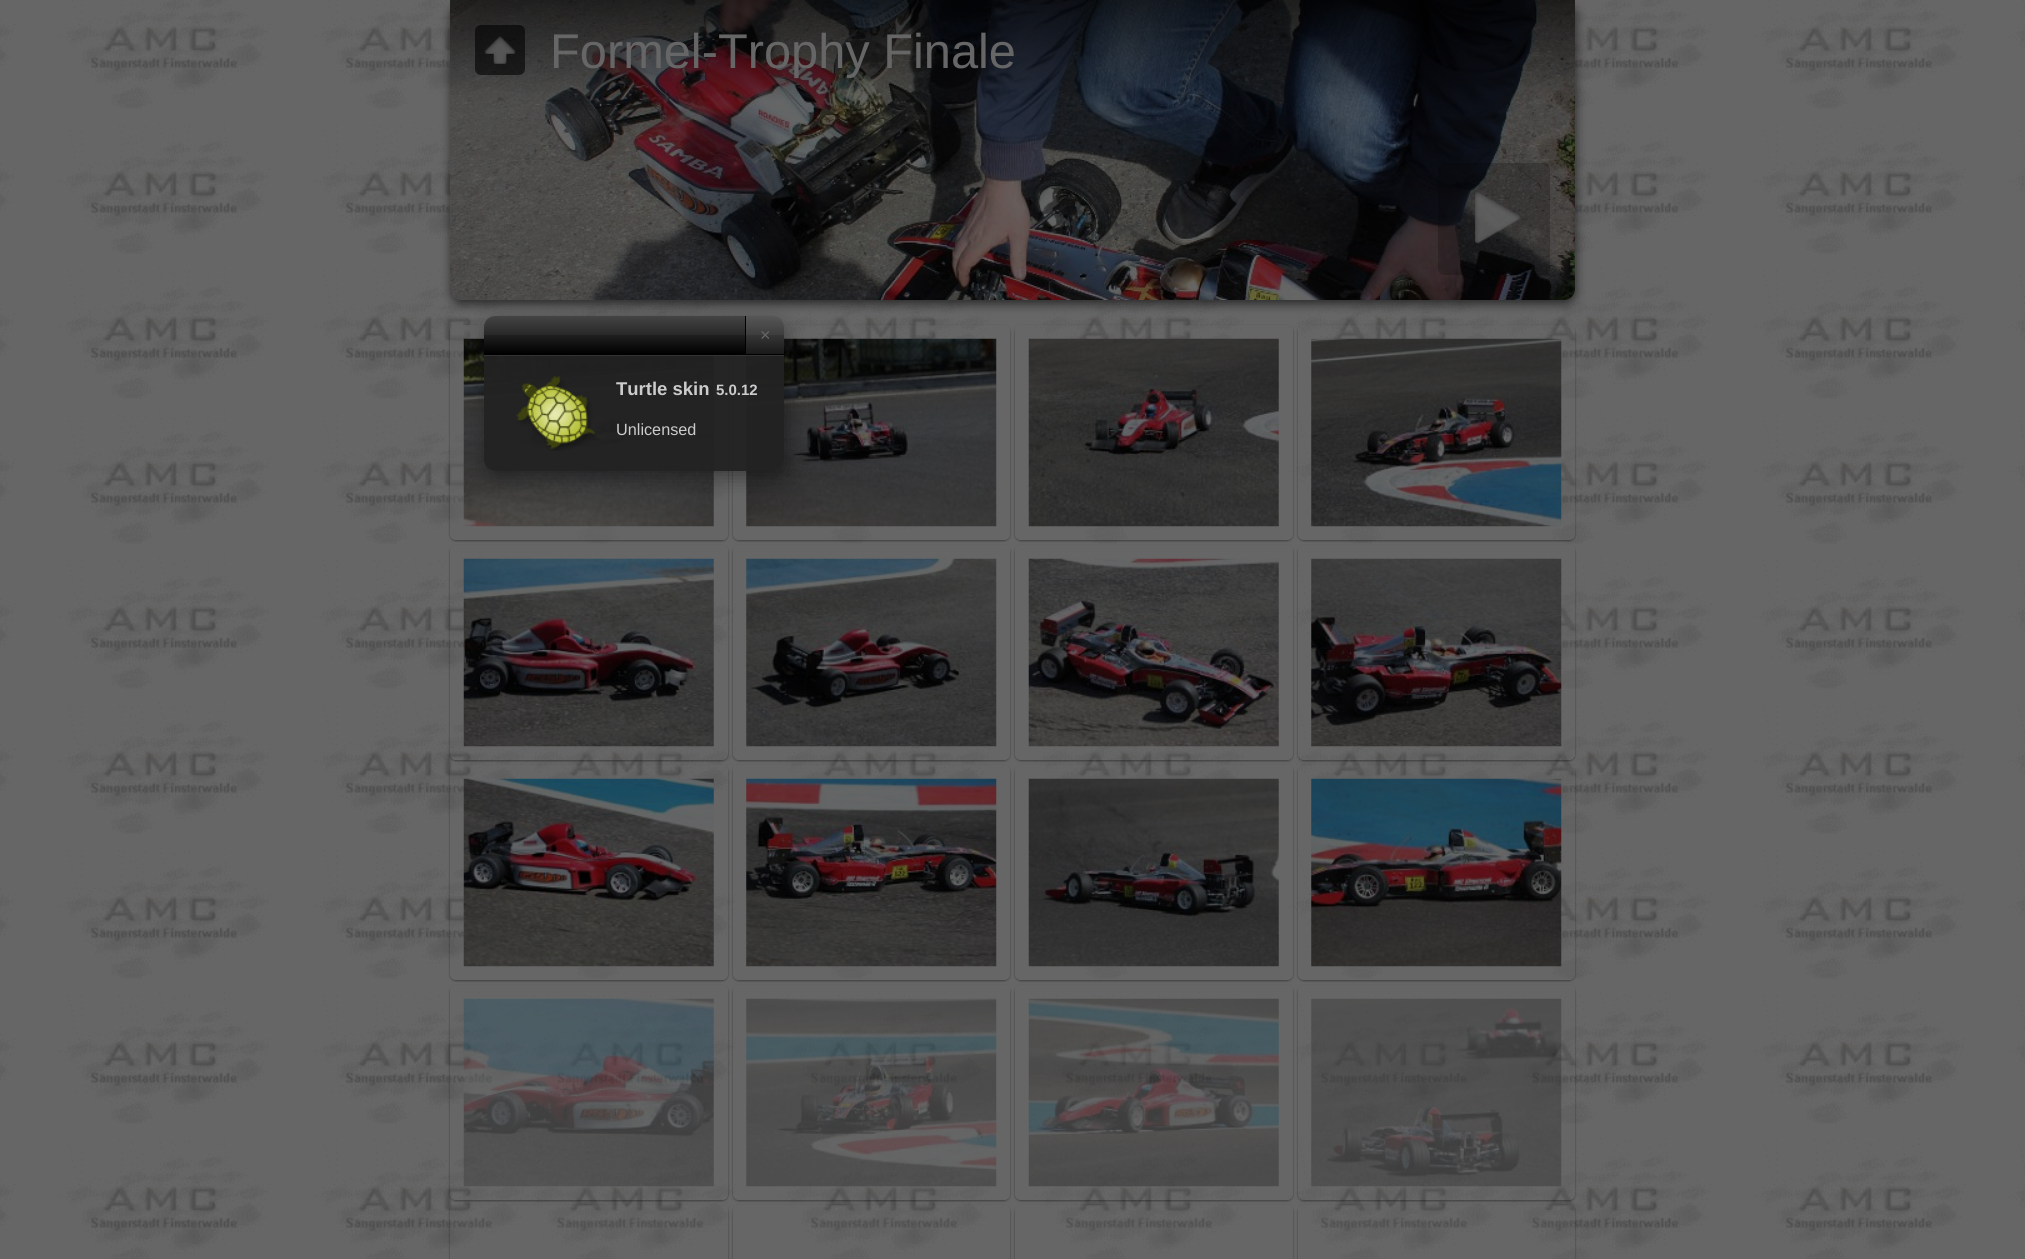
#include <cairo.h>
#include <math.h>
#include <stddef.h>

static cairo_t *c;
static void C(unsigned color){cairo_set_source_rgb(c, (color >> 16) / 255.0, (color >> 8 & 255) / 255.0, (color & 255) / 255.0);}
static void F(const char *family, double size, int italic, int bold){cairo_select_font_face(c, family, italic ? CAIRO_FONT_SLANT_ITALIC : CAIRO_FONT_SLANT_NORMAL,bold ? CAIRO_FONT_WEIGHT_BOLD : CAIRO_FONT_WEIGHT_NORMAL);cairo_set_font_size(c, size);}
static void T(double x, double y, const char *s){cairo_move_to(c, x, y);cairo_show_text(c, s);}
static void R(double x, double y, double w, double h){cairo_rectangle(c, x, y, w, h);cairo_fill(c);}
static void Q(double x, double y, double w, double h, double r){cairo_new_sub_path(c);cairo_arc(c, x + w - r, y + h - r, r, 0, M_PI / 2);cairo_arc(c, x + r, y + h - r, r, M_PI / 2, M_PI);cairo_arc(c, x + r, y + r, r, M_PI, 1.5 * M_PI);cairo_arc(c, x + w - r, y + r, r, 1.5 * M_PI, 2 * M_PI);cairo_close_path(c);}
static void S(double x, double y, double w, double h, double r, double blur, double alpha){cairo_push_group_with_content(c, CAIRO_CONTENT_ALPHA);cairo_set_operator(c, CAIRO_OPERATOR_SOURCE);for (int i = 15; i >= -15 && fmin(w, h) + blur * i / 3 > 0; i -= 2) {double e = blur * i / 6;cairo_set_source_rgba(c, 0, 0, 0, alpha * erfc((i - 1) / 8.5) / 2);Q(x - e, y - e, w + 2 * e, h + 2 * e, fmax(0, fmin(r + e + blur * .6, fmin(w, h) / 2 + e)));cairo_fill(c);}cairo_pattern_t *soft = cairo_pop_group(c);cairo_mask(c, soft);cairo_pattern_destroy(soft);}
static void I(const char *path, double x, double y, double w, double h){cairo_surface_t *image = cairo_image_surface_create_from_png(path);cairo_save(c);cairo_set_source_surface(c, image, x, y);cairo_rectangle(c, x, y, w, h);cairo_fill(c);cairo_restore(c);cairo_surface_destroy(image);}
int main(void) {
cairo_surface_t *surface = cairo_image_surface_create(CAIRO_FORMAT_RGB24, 2025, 1259);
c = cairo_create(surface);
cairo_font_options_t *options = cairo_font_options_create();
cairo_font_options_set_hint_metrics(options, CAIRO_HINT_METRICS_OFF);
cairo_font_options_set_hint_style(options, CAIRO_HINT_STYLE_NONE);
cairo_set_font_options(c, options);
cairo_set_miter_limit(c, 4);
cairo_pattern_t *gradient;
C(0xffffff);
cairo_paint(c);
I("1.png",0,0,2025,1259);
C(0x000000);
S(451,4,1125,300,11,5,.6);
I("2.png",450,0,1125,300);
cairo_set_source_rgba(c,0,0,0,0.6);
Q(475,25,50,50,6);
cairo_fill(c);
I("3.png",484,36,32,28);
F("Liberation Sans",48.75,0,0);
C(0x666666);
T(550,68,"Formel-Trophy Finale");
cairo_set_source_rgba(c,0,0,0,0.2);
Q(1438,163,112,112,6);
cairo_fill(c);
I("4.png",1474,191,47,53);
cairo_save(c);
cairo_set_fill_rule(c,CAIRO_FILL_RULE_EVEN_ODD);
cairo_new_path(c);
cairo_move_to(c,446,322);
cairo_line_to(c,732,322);
cairo_line_to(c,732,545);
cairo_line_to(c,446,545);
cairo_close_path(c);
cairo_move_to(c,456,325);
cairo_line_to(c,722,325);
cairo_curve_to(c,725.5,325,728,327.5,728,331);
cairo_line_to(c,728,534);
cairo_curve_to(c,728,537.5,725.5,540,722,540);
cairo_line_to(c,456,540);
cairo_curve_to(c,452.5,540,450,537.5,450,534);
cairo_line_to(c,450,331);
cairo_curve_to(c,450,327.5,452.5,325,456,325);
cairo_close_path(c);
cairo_clip(c);
C(0x000000);
S(450,326,278,215,6,1,.4);
cairo_restore(c);
cairo_set_source_rgba(c,0.4,0.4,0.4,0.1);
Q(450,325,278,215,6);
cairo_fill(c);
cairo_set_source_rgba(c,0.4,0.4,0.4,0.4);
Q(450,325,278,215,6);
cairo_fill(c);
I("5.png",463,338,251,189);
cairo_save(c);
cairo_set_fill_rule(c,CAIRO_FILL_RULE_EVEN_ODD);
cairo_new_path(c);
cairo_move_to(c,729,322);
cairo_line_to(c,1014,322);
cairo_line_to(c,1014,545);
cairo_line_to(c,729,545);
cairo_close_path(c);
cairo_move_to(c,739,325);
cairo_line_to(c,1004,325);
cairo_curve_to(c,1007.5,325,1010,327.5,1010,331);
cairo_line_to(c,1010,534);
cairo_curve_to(c,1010,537.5,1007.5,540,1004,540);
cairo_line_to(c,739,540);
cairo_curve_to(c,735.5,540,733,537.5,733,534);
cairo_line_to(c,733,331);
cairo_curve_to(c,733,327.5,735.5,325,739,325);
cairo_close_path(c);
cairo_clip(c);
C(0x000000);
S(733,326,277,215,6,1,.4);
cairo_restore(c);
cairo_set_source_rgba(c,0.4,0.4,0.4,0.1);
Q(733,325,277,215,6);
cairo_fill(c);
I("6.png",746,338,251,189);
cairo_save(c);
cairo_set_fill_rule(c,CAIRO_FILL_RULE_EVEN_ODD);
cairo_new_path(c);
cairo_move_to(c,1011,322);
cairo_line_to(c,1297,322);
cairo_line_to(c,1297,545);
cairo_line_to(c,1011,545);
cairo_close_path(c);
cairo_move_to(c,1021,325);
cairo_line_to(c,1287,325);
cairo_curve_to(c,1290.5,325,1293,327.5,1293,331);
cairo_line_to(c,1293,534);
cairo_curve_to(c,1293,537.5,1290.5,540,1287,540);
cairo_line_to(c,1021,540);
cairo_curve_to(c,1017.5,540,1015,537.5,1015,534);
cairo_line_to(c,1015,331);
cairo_curve_to(c,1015,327.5,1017.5,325,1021,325);
cairo_close_path(c);
cairo_clip(c);
C(0x000000);
S(1015,326,278,215,6,1,.4);
cairo_restore(c);
Q(1015,325,278,215,6);
cairo_fill(c);
I("7.png",1028,338,251,189);
cairo_save(c);
cairo_set_fill_rule(c,CAIRO_FILL_RULE_EVEN_ODD);
cairo_new_path(c);
cairo_move_to(c,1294,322);
cairo_line_to(c,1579,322);
cairo_line_to(c,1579,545);
cairo_line_to(c,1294,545);
cairo_close_path(c);
cairo_move_to(c,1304,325);
cairo_line_to(c,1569,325);
cairo_curve_to(c,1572.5,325,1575,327.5,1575,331);
cairo_line_to(c,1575,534);
cairo_curve_to(c,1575,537.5,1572.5,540,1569,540);
cairo_line_to(c,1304,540);
cairo_curve_to(c,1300.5,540,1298,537.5,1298,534);
cairo_line_to(c,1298,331);
cairo_curve_to(c,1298,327.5,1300.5,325,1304,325);
cairo_close_path(c);
cairo_clip(c);
C(0x000000);
S(1298,326,277,215,6,1,.4);
cairo_restore(c);
Q(1298,325,277,215,6);
cairo_fill(c);
I("8.png",1311,338,251,189);
cairo_save(c);
cairo_set_fill_rule(c,CAIRO_FILL_RULE_EVEN_ODD);
cairo_new_path(c);
cairo_move_to(c,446,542);
cairo_line_to(c,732,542);
cairo_line_to(c,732,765);
cairo_line_to(c,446,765);
cairo_close_path(c);
cairo_move_to(c,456,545);
cairo_line_to(c,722,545);
cairo_curve_to(c,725.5,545,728,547.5,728,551);
cairo_line_to(c,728,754);
cairo_curve_to(c,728,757.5,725.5,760,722,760);
cairo_line_to(c,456,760);
cairo_curve_to(c,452.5,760,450,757.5,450,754);
cairo_line_to(c,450,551);
cairo_curve_to(c,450,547.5,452.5,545,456,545);
cairo_close_path(c);
cairo_clip(c);
C(0x000000);
S(450,546,278,215,6,1,.4);
cairo_restore(c);
Q(450,545,278,215,6);
cairo_fill(c);
I("9.png",463,558,251,189);
cairo_save(c);
cairo_set_fill_rule(c,CAIRO_FILL_RULE_EVEN_ODD);
cairo_new_path(c);
cairo_move_to(c,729,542);
cairo_line_to(c,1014,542);
cairo_line_to(c,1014,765);
cairo_line_to(c,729,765);
cairo_close_path(c);
cairo_move_to(c,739,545);
cairo_line_to(c,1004,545);
cairo_curve_to(c,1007.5,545,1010,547.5,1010,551);
cairo_line_to(c,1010,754);
cairo_curve_to(c,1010,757.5,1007.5,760,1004,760);
cairo_line_to(c,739,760);
cairo_curve_to(c,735.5,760,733,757.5,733,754);
cairo_line_to(c,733,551);
cairo_curve_to(c,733,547.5,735.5,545,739,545);
cairo_close_path(c);
cairo_clip(c);
C(0x000000);
S(733,546,277,215,6,1,.4);
cairo_restore(c);
Q(733,545,277,215,6);
cairo_fill(c);
I("10.png",746,558,251,189);
cairo_save(c);
cairo_set_fill_rule(c,CAIRO_FILL_RULE_EVEN_ODD);
cairo_new_path(c);
cairo_move_to(c,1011,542);
cairo_line_to(c,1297,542);
cairo_line_to(c,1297,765);
cairo_line_to(c,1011,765);
cairo_close_path(c);
cairo_move_to(c,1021,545);
cairo_line_to(c,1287,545);
cairo_curve_to(c,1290.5,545,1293,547.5,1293,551);
cairo_line_to(c,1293,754);
cairo_curve_to(c,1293,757.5,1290.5,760,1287,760);
cairo_line_to(c,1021,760);
cairo_curve_to(c,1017.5,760,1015,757.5,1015,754);
cairo_line_to(c,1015,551);
cairo_curve_to(c,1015,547.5,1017.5,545,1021,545);
cairo_close_path(c);
cairo_clip(c);
C(0x000000);
S(1015,546,278,215,6,1,.4);
cairo_restore(c);
Q(1015,545,278,215,6);
cairo_fill(c);
I("11.png",1028,558,251,189);
cairo_save(c);
cairo_set_fill_rule(c,CAIRO_FILL_RULE_EVEN_ODD);
cairo_new_path(c);
cairo_move_to(c,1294,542);
cairo_line_to(c,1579,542);
cairo_line_to(c,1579,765);
cairo_line_to(c,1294,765);
cairo_close_path(c);
cairo_move_to(c,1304,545);
cairo_line_to(c,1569,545);
cairo_curve_to(c,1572.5,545,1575,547.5,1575,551);
cairo_line_to(c,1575,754);
cairo_curve_to(c,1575,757.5,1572.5,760,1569,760);
cairo_line_to(c,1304,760);
cairo_curve_to(c,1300.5,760,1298,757.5,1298,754);
cairo_line_to(c,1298,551);
cairo_curve_to(c,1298,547.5,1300.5,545,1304,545);
cairo_close_path(c);
cairo_clip(c);
C(0x000000);
S(1298,546,277,215,6,1,.4);
cairo_restore(c);
Q(1298,545,277,215,6);
cairo_fill(c);
I("12.png",1311,558,251,189);
cairo_save(c);
cairo_set_fill_rule(c,CAIRO_FILL_RULE_EVEN_ODD);
cairo_new_path(c);
cairo_move_to(c,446,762);
cairo_line_to(c,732,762);
cairo_line_to(c,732,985);
cairo_line_to(c,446,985);
cairo_close_path(c);
cairo_move_to(c,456,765);
cairo_line_to(c,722,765);
cairo_curve_to(c,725.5,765,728,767.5,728,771);
cairo_line_to(c,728,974);
cairo_curve_to(c,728,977.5,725.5,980,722,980);
cairo_line_to(c,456,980);
cairo_curve_to(c,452.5,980,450,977.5,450,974);
cairo_line_to(c,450,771);
cairo_curve_to(c,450,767.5,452.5,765,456,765);
cairo_close_path(c);
cairo_clip(c);
C(0x000000);
S(450,766,278,215,6,1,.4);
cairo_restore(c);
Q(450,765,278,215,6);
cairo_fill(c);
I("13.png",463,778,251,189);
cairo_save(c);
cairo_set_fill_rule(c,CAIRO_FILL_RULE_EVEN_ODD);
cairo_new_path(c);
cairo_move_to(c,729,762);
cairo_line_to(c,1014,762);
cairo_line_to(c,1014,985);
cairo_line_to(c,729,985);
cairo_close_path(c);
cairo_move_to(c,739,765);
cairo_line_to(c,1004,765);
cairo_curve_to(c,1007.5,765,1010,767.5,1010,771);
cairo_line_to(c,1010,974);
cairo_curve_to(c,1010,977.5,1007.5,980,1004,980);
cairo_line_to(c,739,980);
cairo_curve_to(c,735.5,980,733,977.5,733,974);
cairo_line_to(c,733,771);
cairo_curve_to(c,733,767.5,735.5,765,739,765);
cairo_close_path(c);
cairo_clip(c);
C(0x000000);
S(733,766,277,215,6,1,.4);
cairo_restore(c);
Q(733,765,277,215,6);
cairo_fill(c);
I("14.png",746,778,251,189);
cairo_save(c);
cairo_set_fill_rule(c,CAIRO_FILL_RULE_EVEN_ODD);
cairo_new_path(c);
cairo_move_to(c,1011,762);
cairo_line_to(c,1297,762);
cairo_line_to(c,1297,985);
cairo_line_to(c,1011,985);
cairo_close_path(c);
cairo_move_to(c,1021,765);
cairo_line_to(c,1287,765);
cairo_curve_to(c,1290.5,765,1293,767.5,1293,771);
cairo_line_to(c,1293,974);
cairo_curve_to(c,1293,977.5,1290.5,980,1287,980);
cairo_line_to(c,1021,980);
cairo_curve_to(c,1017.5,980,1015,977.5,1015,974);
cairo_line_to(c,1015,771);
cairo_curve_to(c,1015,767.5,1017.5,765,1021,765);
cairo_close_path(c);
cairo_clip(c);
C(0x000000);
S(1015,766,278,215,6,1,.4);
cairo_restore(c);
Q(1015,765,278,215,6);
cairo_fill(c);
I("15.png",1028,778,251,189);
cairo_save(c);
cairo_set_fill_rule(c,CAIRO_FILL_RULE_EVEN_ODD);
cairo_new_path(c);
cairo_move_to(c,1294,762);
cairo_line_to(c,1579,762);
cairo_line_to(c,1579,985);
cairo_line_to(c,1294,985);
cairo_close_path(c);
cairo_move_to(c,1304,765);
cairo_line_to(c,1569,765);
cairo_curve_to(c,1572.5,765,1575,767.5,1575,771);
cairo_line_to(c,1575,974);
cairo_curve_to(c,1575,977.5,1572.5,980,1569,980);
cairo_line_to(c,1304,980);
cairo_curve_to(c,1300.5,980,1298,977.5,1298,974);
cairo_line_to(c,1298,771);
cairo_curve_to(c,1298,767.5,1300.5,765,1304,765);
cairo_close_path(c);
cairo_clip(c);
C(0x000000);
S(1298,766,277,215,6,1,.4);
cairo_restore(c);
Q(1298,765,277,215,6);
cairo_fill(c);
I("16.png",1311,778,251,189);
cairo_save(c);
cairo_set_fill_rule(c,CAIRO_FILL_RULE_EVEN_ODD);
cairo_new_path(c);
cairo_move_to(c,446,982);
cairo_line_to(c,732,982);
cairo_line_to(c,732,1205);
cairo_line_to(c,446,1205);
cairo_close_path(c);
cairo_move_to(c,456,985);
cairo_line_to(c,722,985);
cairo_curve_to(c,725.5,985,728,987.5,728,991);
cairo_line_to(c,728,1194);
cairo_curve_to(c,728,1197.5,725.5,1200,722,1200);
cairo_line_to(c,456,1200);
cairo_curve_to(c,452.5,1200,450,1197.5,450,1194);
cairo_line_to(c,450,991);
cairo_curve_to(c,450,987.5,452.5,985,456,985);
cairo_close_path(c);
cairo_clip(c);
C(0x000000);
S(450,986,278,215,6,1,.4);
cairo_restore(c);
Q(450,985,278,215,6);
cairo_fill(c);
I("17.png",463,998,251,189);
cairo_save(c);
cairo_set_fill_rule(c,CAIRO_FILL_RULE_EVEN_ODD);
cairo_new_path(c);
cairo_move_to(c,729,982);
cairo_line_to(c,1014,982);
cairo_line_to(c,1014,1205);
cairo_line_to(c,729,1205);
cairo_close_path(c);
cairo_move_to(c,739,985);
cairo_line_to(c,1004,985);
cairo_curve_to(c,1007.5,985,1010,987.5,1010,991);
cairo_line_to(c,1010,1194);
cairo_curve_to(c,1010,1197.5,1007.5,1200,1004,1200);
cairo_line_to(c,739,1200);
cairo_curve_to(c,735.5,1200,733,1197.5,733,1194);
cairo_line_to(c,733,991);
cairo_curve_to(c,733,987.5,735.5,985,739,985);
cairo_close_path(c);
cairo_clip(c);
C(0x000000);
S(733,986,277,215,6,1,.4);
cairo_restore(c);
Q(733,985,277,215,6);
cairo_fill(c);
I("18.png",746,998,251,189);
cairo_save(c);
cairo_set_fill_rule(c,CAIRO_FILL_RULE_EVEN_ODD);
cairo_new_path(c);
cairo_move_to(c,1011,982);
cairo_line_to(c,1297,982);
cairo_line_to(c,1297,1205);
cairo_line_to(c,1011,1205);
cairo_close_path(c);
cairo_move_to(c,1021,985);
cairo_line_to(c,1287,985);
cairo_curve_to(c,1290.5,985,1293,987.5,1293,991);
cairo_line_to(c,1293,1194);
cairo_curve_to(c,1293,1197.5,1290.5,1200,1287,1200);
cairo_line_to(c,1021,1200);
cairo_curve_to(c,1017.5,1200,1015,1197.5,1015,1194);
cairo_line_to(c,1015,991);
cairo_curve_to(c,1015,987.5,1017.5,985,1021,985);
cairo_close_path(c);
cairo_clip(c);
C(0x000000);
S(1015,986,278,215,6,1,.4);
cairo_restore(c);
Q(1015,985,278,215,6);
cairo_fill(c);
I("19.png",1028,998,251,189);
cairo_save(c);
cairo_set_fill_rule(c,CAIRO_FILL_RULE_EVEN_ODD);
cairo_new_path(c);
cairo_move_to(c,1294,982);
cairo_line_to(c,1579,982);
cairo_line_to(c,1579,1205);
cairo_line_to(c,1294,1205);
cairo_close_path(c);
cairo_move_to(c,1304,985);
cairo_line_to(c,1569,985);
cairo_curve_to(c,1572.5,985,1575,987.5,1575,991);
cairo_line_to(c,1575,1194);
cairo_curve_to(c,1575,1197.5,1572.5,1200,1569,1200);
cairo_line_to(c,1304,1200);
cairo_curve_to(c,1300.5,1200,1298,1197.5,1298,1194);
cairo_line_to(c,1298,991);
cairo_curve_to(c,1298,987.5,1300.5,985,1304,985);
cairo_close_path(c);
cairo_clip(c);
C(0x000000);
S(1298,986,277,215,6,1,.4);
cairo_restore(c);
Q(1298,985,277,215,6);
cairo_fill(c);
I("20.png",1311,998,251,189);
cairo_save(c);
cairo_set_fill_rule(c,CAIRO_FILL_RULE_EVEN_ODD);
cairo_new_path(c);
cairo_move_to(c,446,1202);
cairo_line_to(c,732,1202);
cairo_line_to(c,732,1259);
cairo_line_to(c,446,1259);
cairo_close_path(c);
cairo_move_to(c,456,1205);
cairo_line_to(c,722,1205);
cairo_curve_to(c,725.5,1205,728,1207.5,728,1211);
cairo_line_to(c,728,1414);
cairo_curve_to(c,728,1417.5,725.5,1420,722,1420);
cairo_line_to(c,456,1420);
cairo_curve_to(c,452.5,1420,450,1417.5,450,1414);
cairo_line_to(c,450,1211);
cairo_curve_to(c,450,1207.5,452.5,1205,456,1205);
cairo_close_path(c);
cairo_clip(c);
C(0x000000);
S(450,1206,278,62,6,1,.4);
cairo_restore(c);
cairo_new_path(c);
cairo_move_to(c,456,1205);
cairo_line_to(c,722,1205);
cairo_curve_to(c,725.5,1205,728,1207.5,728,1211);
cairo_line_to(c,728,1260);
cairo_line_to(c,450,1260);
cairo_line_to(c,450,1211);
cairo_curve_to(c,450,1207.5,452.5,1205,456,1205);
cairo_close_path(c);
cairo_fill(c);
cairo_save(c);
cairo_set_fill_rule(c,CAIRO_FILL_RULE_EVEN_ODD);
cairo_new_path(c);
cairo_move_to(c,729,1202);
cairo_line_to(c,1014,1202);
cairo_line_to(c,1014,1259);
cairo_line_to(c,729,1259);
cairo_close_path(c);
cairo_move_to(c,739,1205);
cairo_line_to(c,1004,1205);
cairo_curve_to(c,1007.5,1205,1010,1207.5,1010,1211);
cairo_line_to(c,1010,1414);
cairo_curve_to(c,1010,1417.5,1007.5,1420,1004,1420);
cairo_line_to(c,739,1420);
cairo_curve_to(c,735.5,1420,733,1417.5,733,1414);
cairo_line_to(c,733,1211);
cairo_curve_to(c,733,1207.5,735.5,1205,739,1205);
cairo_close_path(c);
cairo_clip(c);
C(0x000000);
S(733,1206,277,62,6,1,.4);
cairo_restore(c);
cairo_new_path(c);
cairo_move_to(c,739,1205);
cairo_line_to(c,1004,1205);
cairo_curve_to(c,1007.5,1205,1010,1207.5,1010,1211);
cairo_line_to(c,1010,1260);
cairo_line_to(c,733,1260);
cairo_line_to(c,733,1211);
cairo_curve_to(c,733,1207.5,735.5,1205,739,1205);
cairo_close_path(c);
cairo_fill(c);
cairo_save(c);
cairo_set_fill_rule(c,CAIRO_FILL_RULE_EVEN_ODD);
cairo_new_path(c);
cairo_move_to(c,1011,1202);
cairo_line_to(c,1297,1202);
cairo_line_to(c,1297,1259);
cairo_line_to(c,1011,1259);
cairo_close_path(c);
cairo_move_to(c,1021,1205);
cairo_line_to(c,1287,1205);
cairo_curve_to(c,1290.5,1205,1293,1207.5,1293,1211);
cairo_line_to(c,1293,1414);
cairo_curve_to(c,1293,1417.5,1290.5,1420,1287,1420);
cairo_line_to(c,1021,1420);
cairo_curve_to(c,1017.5,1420,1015,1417.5,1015,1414);
cairo_line_to(c,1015,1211);
cairo_curve_to(c,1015,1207.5,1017.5,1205,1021,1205);
cairo_close_path(c);
cairo_clip(c);
C(0x000000);
S(1015,1206,278,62,6,1,.4);
cairo_restore(c);
cairo_new_path(c);
cairo_move_to(c,1021,1205);
cairo_line_to(c,1287,1205);
cairo_curve_to(c,1290.5,1205,1293,1207.5,1293,1211);
cairo_line_to(c,1293,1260);
cairo_line_to(c,1015,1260);
cairo_line_to(c,1015,1211);
cairo_curve_to(c,1015,1207.5,1017.5,1205,1021,1205);
cairo_close_path(c);
cairo_fill(c);
cairo_save(c);
cairo_set_fill_rule(c,CAIRO_FILL_RULE_EVEN_ODD);
cairo_new_path(c);
cairo_move_to(c,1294,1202);
cairo_line_to(c,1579,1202);
cairo_line_to(c,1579,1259);
cairo_line_to(c,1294,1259);
cairo_close_path(c);
cairo_move_to(c,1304,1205);
cairo_line_to(c,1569,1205);
cairo_curve_to(c,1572.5,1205,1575,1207.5,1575,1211);
cairo_line_to(c,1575,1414);
cairo_curve_to(c,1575,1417.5,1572.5,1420,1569,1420);
cairo_line_to(c,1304,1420);
cairo_curve_to(c,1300.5,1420,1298,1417.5,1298,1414);
cairo_line_to(c,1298,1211);
cairo_curve_to(c,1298,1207.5,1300.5,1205,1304,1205);
cairo_close_path(c);
cairo_clip(c);
C(0x000000);
S(1298,1206,277,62,6,1,.4);
cairo_restore(c);
cairo_new_path(c);
cairo_move_to(c,1304,1205);
cairo_line_to(c,1569,1205);
cairo_curve_to(c,1572.5,1205,1575,1207.5,1575,1211);
cairo_line_to(c,1575,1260);
cairo_line_to(c,1298,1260);
cairo_line_to(c,1298,1211);
cairo_curve_to(c,1298,1207.5,1300.5,1205,1304,1205);
cairo_close_path(c);
cairo_fill(c);
cairo_save(c);
cairo_set_fill_rule(c,CAIRO_FILL_RULE_EVEN_ODD);
cairo_new_path(c);
cairo_move_to(c,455,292);
cairo_line_to(c,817,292);
cairo_line_to(c,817,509);
cairo_line_to(c,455,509);
cairo_close_path(c);
cairo_move_to(c,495,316);
cairo_line_to(c,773,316);
cairo_curve_to(c,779,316,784,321,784,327);
cairo_line_to(c,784,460);
cairo_curve_to(c,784,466,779,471,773,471);
cairo_line_to(c,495,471);
cairo_curve_to(c,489,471,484,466,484,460);
cairo_line_to(c,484,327);
cairo_curve_to(c,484,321,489,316,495,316);
cairo_close_path(c);
cairo_clip(c);
C(0x000000);
S(486,323,300,155,11,10,.4);
cairo_restore(c);
gradient = cairo_pattern_create_linear(634,316,634,354);
cairo_pattern_add_color_stop_rgba(gradient,0,0.267,0.267,0.267,1);
cairo_pattern_add_color_stop_rgba(gradient,.5,0.157,0.157,0.157,1);
cairo_pattern_add_color_stop_rgba(gradient,.5,0.125,0.125,0.125,1);
cairo_pattern_add_color_stop_rgba(gradient,1,0,0,0,1);
cairo_set_source(c,gradient);
cairo_pattern_destroy(gradient);
cairo_new_path(c);
cairo_move_to(c,495,316);
cairo_line_to(c,773,316);
cairo_curve_to(c,779,316,784,321,784,327);
cairo_line_to(c,784,354);
cairo_line_to(c,484,354);
cairo_line_to(c,484,327);
cairo_curve_to(c,484,321,489,316,495,316);
cairo_close_path(c);
cairo_fill(c);
C(0x000000);
R(484,354,300,1);
cairo_set_source_rgba(c,1,1,1,0.1);
cairo_new_path(c);
cairo_move_to(c,745,316);
cairo_line_to(c,773,316);
cairo_curve_to(c,779,316,784,321,784,327);
cairo_line_to(c,784,354);
cairo_line_to(c,745,354);
cairo_close_path(c);
cairo_fill(c);
C(0x000000);
R(745,316,1,38);
F("Liberation Sans",18,0,0);
C(0x666666);
T(760,341,"×");
cairo_set_source_rgba(c,0.133,0.133,0.133,0.95);
cairo_new_path(c);
cairo_move_to(c,484,355);
cairo_line_to(c,784,355);
cairo_line_to(c,784,460);
cairo_curve_to(c,784,466,779,471,773,471);
cairo_line_to(c,495,471);
cairo_curve_to(c,489,471,484,466,484,460);
cairo_close_path(c);
cairo_fill(c);
C(0x333333);
R(484,355,300,1);
I("21.png",516,376,80,75);
F("Liberation Sans",18.5,0,1);
C(0xcccccc);
T(616,395,"Turtle skin");
F("Liberation Sans",15,0,1);
T(716,395,"5.0.12");
F("Liberation Sans",16.25,0,0);
T(616,435,"Unlicensed");
cairo_surface_write_to_png(surface, "o.png");
cairo_font_options_destroy(options);
cairo_destroy(c);
cairo_surface_destroy(surface);
return 0;
}
